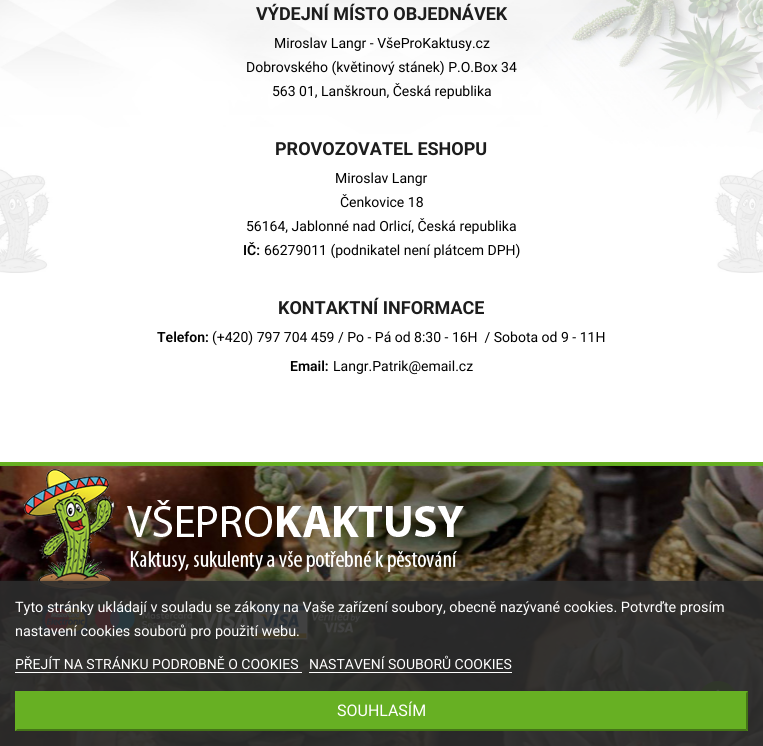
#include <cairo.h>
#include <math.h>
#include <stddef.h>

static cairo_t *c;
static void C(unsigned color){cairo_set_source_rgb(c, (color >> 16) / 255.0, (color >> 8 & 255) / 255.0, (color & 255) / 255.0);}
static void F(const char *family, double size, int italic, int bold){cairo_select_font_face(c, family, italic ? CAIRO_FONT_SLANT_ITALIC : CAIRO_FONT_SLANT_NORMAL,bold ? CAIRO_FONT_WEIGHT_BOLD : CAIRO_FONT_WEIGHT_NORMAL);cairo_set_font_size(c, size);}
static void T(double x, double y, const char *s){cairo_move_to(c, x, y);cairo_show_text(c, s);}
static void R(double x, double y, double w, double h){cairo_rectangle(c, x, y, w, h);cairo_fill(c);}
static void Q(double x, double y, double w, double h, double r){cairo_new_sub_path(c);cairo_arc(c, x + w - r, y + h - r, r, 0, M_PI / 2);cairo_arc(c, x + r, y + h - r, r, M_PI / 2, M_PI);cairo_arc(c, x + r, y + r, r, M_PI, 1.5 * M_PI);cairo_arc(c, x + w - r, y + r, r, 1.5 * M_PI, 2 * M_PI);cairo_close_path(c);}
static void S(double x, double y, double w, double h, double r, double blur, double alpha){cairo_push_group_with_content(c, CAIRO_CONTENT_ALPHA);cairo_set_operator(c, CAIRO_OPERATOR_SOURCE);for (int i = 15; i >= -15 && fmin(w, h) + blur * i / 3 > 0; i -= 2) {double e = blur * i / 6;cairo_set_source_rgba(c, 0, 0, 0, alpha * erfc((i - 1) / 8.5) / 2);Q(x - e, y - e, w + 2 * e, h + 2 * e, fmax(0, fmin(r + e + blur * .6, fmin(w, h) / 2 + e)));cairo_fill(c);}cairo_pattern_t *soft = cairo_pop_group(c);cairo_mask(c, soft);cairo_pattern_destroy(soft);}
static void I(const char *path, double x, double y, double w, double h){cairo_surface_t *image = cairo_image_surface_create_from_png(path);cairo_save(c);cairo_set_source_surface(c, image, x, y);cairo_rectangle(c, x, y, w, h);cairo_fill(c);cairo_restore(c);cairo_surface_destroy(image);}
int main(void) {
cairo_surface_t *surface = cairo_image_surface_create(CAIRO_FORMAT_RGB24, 763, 746);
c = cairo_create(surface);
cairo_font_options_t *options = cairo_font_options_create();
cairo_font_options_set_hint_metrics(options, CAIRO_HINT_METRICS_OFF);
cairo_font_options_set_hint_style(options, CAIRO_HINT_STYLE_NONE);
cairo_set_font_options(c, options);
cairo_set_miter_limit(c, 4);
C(0xffffff);
cairo_paint(c);
I("1.png",0,0,763,273);
F("Roboto",18,0,1);
C(0x1d1d1d);
T(256,20,"VÝDEJNÍ MÍSTO OBJEDNÁVEK");
F("Roboto",14,0,0);
C(0x000000);
T(274,48,"Miroslav Langr - VšeProKaktusy.cz");
T(246,72,"Dobrovského (květinový stánek) P.O.Box 34");
T(272,96,"563 01, Lanškroun, Česká republika");
F("Roboto",18,0,1);
C(0x1d1d1d);
T(275,155,"PROVOZOVATEL ESHOPU");
F("Roboto",14,0,0);
C(0x000000);
T(335,183,"Miroslav Langr");
T(340,207,"Čenkovice 18");
T(246,231,"56164, Jablonné nad Orlicí, Česká republika");
F("Roboto SemiBold",14,0,0);
T(243,255,"IČ:");
F("Roboto",14,0,0);
T(264,255,"66279011 (podnikatel není plátcem DPH)");
F("Roboto",18,0,1);
C(0x1d1d1d);
T(278,314,"KONTAKTNÍ INFORMACE");
F("Roboto SemiBold",14,0,0);
C(0x000000);
T(157,342,"Telefon:");
F("Roboto",14,0,0);
T(212,342,"(+420) 797 704 459 / Po - Pá od 8:30 - 16H  / Sobota od 9 - 11H");
F("Roboto SemiBold",14,0,0);
T(290,371,"Email:");
F("Roboto",14,0,0);
T(333,371,"Langr.Patrik@email.cz");
I("2.png",0,462,763,284);
I("3.png",24,469,440,121);
I("4.png",42,603,318,37);
C(0x528f19);
cairo_arc(c,718,701,20,0,2 * M_PI);
cairo_fill(c);
I("5.png",716,689,4,2);
cairo_save(c);
cairo_rectangle(c,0,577,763,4);
cairo_clip(c);
C(0x2d2d2d);
S(0,582,763,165,0,2.5,1);
cairo_restore(c);
cairo_set_source_rgba(c,0.176,0.176,0.176,0.9);
R(0,581,763,165);
F("Roboto",14.4,0,0);
C(0xffffff);
T(15,612,"Tyto stránky ukládají v souladu se zákony na Vaše zařízení soubory, obecně nazývané cookies. Potvrďte prosím");
T(15,636,"nastavení cookies souborů pro použití webu.");
F("Roboto",14,0,0);
T(15,669,"PŘEJÍT NA STRÁNKU PODROBNĚ O COOKIES");
R(15,672,287,1);
T(309,669,"NASTAVENÍ SOUBORŮ COOKIES");
R(309,672,203,1);
C(0x67b023);
R(15,691,733,40);
C(0x457517);
cairo_new_path(c);
cairo_move_to(c,748,691);
cairo_line_to(c,748,731);
cairo_line_to(c,746,729);
cairo_line_to(c,746,693);
cairo_close_path(c);
cairo_fill(c);
cairo_new_path(c);
cairo_move_to(c,748,731);
cairo_line_to(c,15,731);
cairo_line_to(c,17,729);
cairo_line_to(c,746,729);
cairo_close_path(c);
cairo_fill(c);
C(0x67b023);
cairo_new_path(c);
cairo_move_to(c,15,731);
cairo_line_to(c,15,691);
cairo_line_to(c,17,693);
cairo_line_to(c,17,729);
cairo_close_path(c);
cairo_fill(c);
F("Roboto",16,0,0);
C(0xffffff);
T(337,716,"SOUHLASÍM");
cairo_surface_write_to_png(surface, "o.png");
cairo_font_options_destroy(options);
cairo_destroy(c);
cairo_surface_destroy(surface);
return 0;
}
